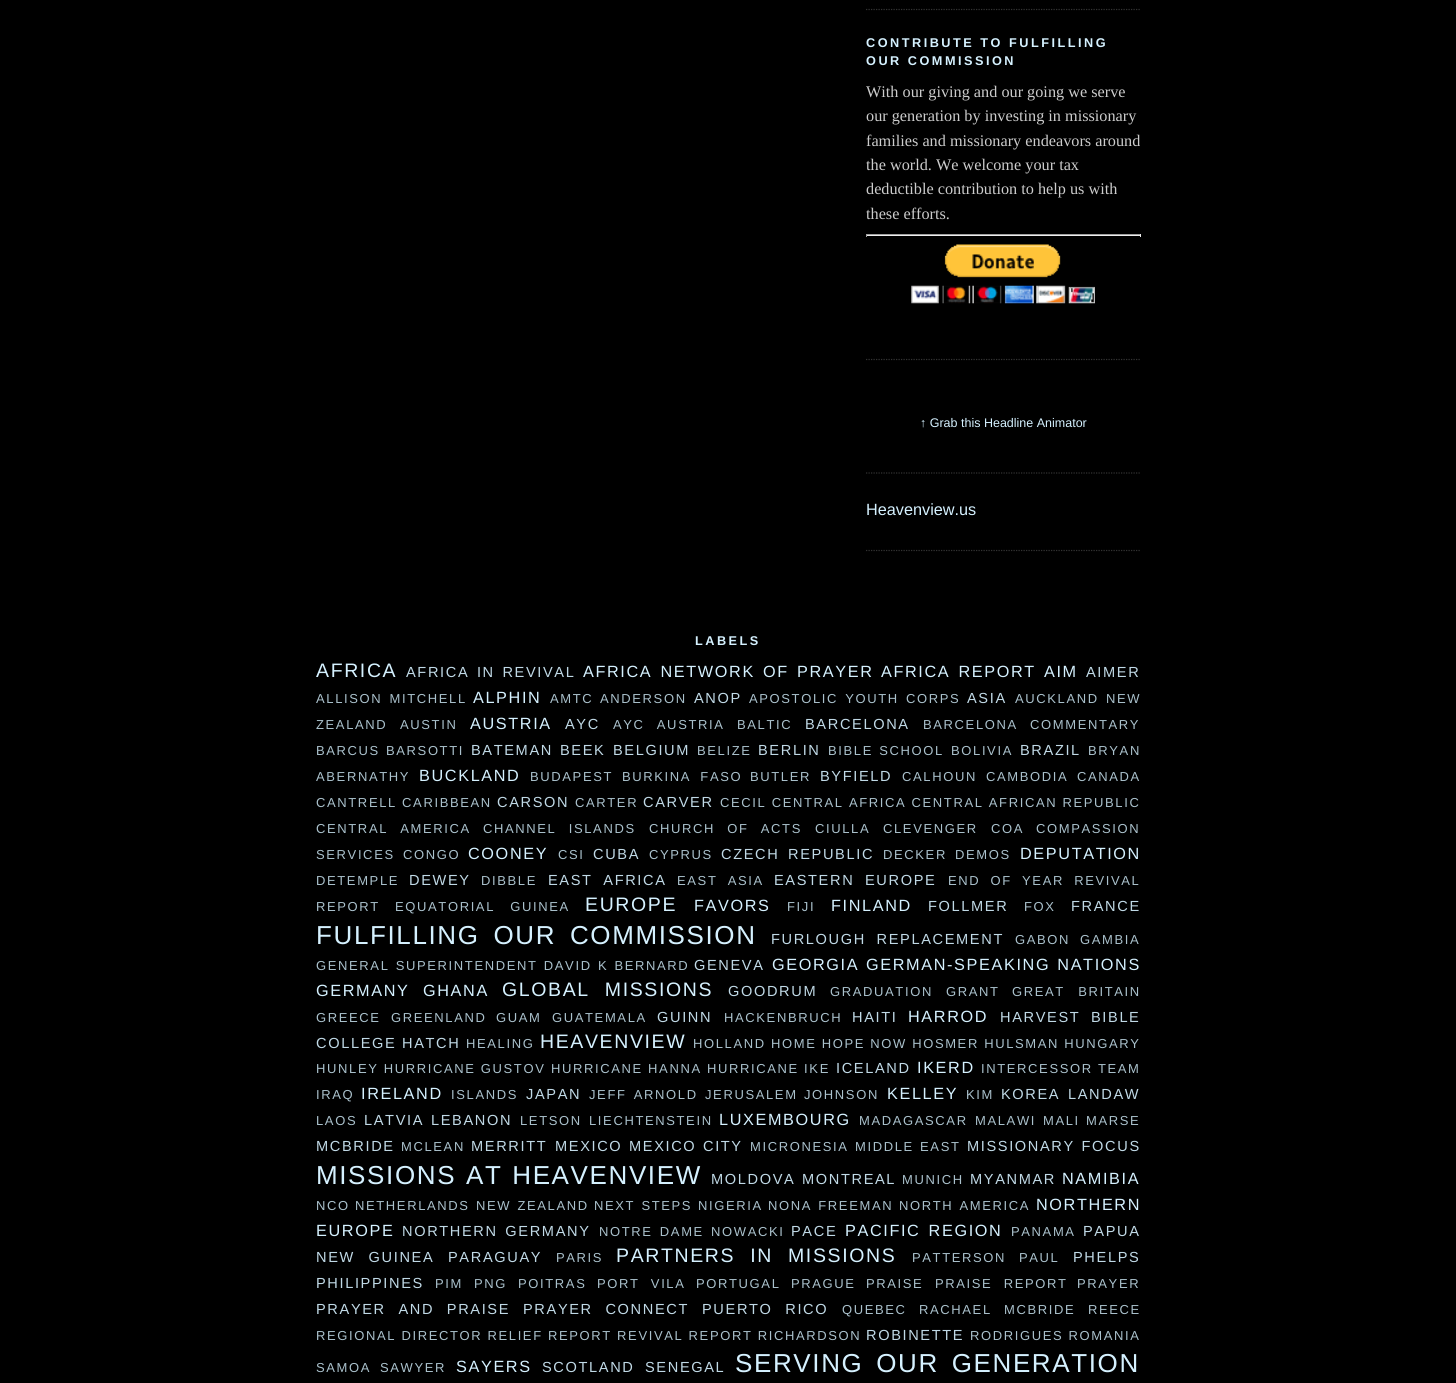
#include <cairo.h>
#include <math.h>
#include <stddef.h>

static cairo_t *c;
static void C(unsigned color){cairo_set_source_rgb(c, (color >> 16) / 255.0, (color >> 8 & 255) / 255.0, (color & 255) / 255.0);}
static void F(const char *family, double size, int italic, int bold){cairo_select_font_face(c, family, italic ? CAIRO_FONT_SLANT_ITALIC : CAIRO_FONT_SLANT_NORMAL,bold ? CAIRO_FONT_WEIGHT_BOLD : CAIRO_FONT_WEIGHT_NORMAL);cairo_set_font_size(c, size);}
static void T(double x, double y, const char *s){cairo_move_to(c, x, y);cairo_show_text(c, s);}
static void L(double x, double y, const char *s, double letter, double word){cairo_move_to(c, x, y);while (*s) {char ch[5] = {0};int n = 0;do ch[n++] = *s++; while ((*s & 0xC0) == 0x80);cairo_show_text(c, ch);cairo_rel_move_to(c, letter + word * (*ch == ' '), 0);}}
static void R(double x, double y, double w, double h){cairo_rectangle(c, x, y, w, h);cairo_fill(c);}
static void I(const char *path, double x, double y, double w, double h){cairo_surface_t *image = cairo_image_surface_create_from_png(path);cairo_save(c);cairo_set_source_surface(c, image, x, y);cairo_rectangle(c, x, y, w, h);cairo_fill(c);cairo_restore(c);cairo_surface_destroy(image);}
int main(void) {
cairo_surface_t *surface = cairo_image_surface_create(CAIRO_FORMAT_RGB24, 1456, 1383);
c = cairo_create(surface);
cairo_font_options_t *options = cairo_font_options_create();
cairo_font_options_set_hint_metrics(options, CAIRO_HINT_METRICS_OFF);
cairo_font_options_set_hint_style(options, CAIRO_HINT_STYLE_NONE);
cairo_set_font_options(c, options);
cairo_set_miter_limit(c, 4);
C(0x000000);
cairo_paint(c);
cairo_new_path(c);
cairo_move_to(c,866,9.5);
cairo_line_to(c,1141,9.5);
C(0x333333);
cairo_set_line_width(c,1.2);
cairo_set_dash(c,(double[]){1.25,1.25},2,0);
cairo_stroke(c);
cairo_new_path(c);
cairo_move_to(c,866,359.5);
cairo_line_to(c,1141,359.5);
cairo_stroke(c);
F("Liberation Sans",12.7,0,1);
C(0xd5f1ff);
L(866,47,"CONTRIBUTE TO FULFILLING",2.5,0);
L(866,65,"OUR COMMISSION",2.5,0);
F("Liberation Serif",16.25,0,0);
C(0xcccccc);
T(866,97,"With our giving and our going we serve");
T(866,121,"our generation by investing in missionary");
T(866,146,"families and missionary endeavors around");
T(866,170,"the world. We welcome your tax");
T(866,194,"deductible contribution to help us with");
T(866,219,"these efforts.");
C(0x9f9f9f);
R(866,234,275,1);
C(0xeeeeee);
R(1140,234,1,3);
R(866,235,275,1);
C(0x9f9f9f);
R(866,234,1,3);
I("1.png",911,244,184,60);
cairo_new_path(c);
cairo_move_to(c,866,473);
cairo_line_to(c,1141,473);
C(0x333333);
cairo_stroke(c);
F("Liberation Sans",12.5,0,0);
C(0xd5f1ff);
T(920,427,"↑ Grab this Headline Animator");
cairo_new_path(c);
cairo_move_to(c,866,550.5);
cairo_line_to(c,1141,550.5);
C(0x333333);
cairo_stroke(c);
F("Liberation Sans",16.25,0,0);
C(0xd5f1ff);
T(866,515,"Heavenview.us");
F("Liberation Sans",12.7,0,1);
L(695,645,"LABELS",2.5,0);
F("Liberation Sans",19.5,0,0);
L(316,677,"AFRICA",1.62,0);
F("Liberation Sans",14.6,0,0);
C(0xc0d9e6);
L(406,677,"AFRICA IN REVIVAL",1.62,2);
F("Liberation Sans",16.25,0,0);
C(0xd5f1ff);
L(583,677,"AFRICA NETWORK OF PRAYER",1.62,2);
L(881,677,"AFRICA REPORT",1.62,2);
L(1044,677,"AIM",1.62,0);
F("Liberation Sans",14.6,0,0);
C(0xc0d9e6);
L(1086,677,"AIMER",1.62,0);
F("Liberation Sans",13,0,0);
C(0xaac1cc);
L(316,703,"ALLISON MITCHELL",1.62,2);
F("Liberation Sans",16.25,0,0);
C(0xd5f1ff);
L(473,703,"ALPHIN",1.62,0);
F("Liberation Sans",13,0,0);
C(0xaac1cc);
L(550,703,"AMTC",1.62,0);
L(600,703,"ANDERSON",1.62,0);
F("Liberation Sans",14.6,0,0);
C(0xc0d9e6);
L(694,703,"ANOP",1.62,0);
F("Liberation Sans",13,0,0);
C(0xaac1cc);
L(749,703,"APOSTOLIC YOUTH CORPS",1.62,2);
F("Liberation Sans",14.6,0,0);
C(0xc0d9e6);
L(967,703,"ASIA",1.62,0);
F("Liberation Sans",13,0,0);
C(0xaac1cc);
L(1015,703,"AUCKLAND NEW",1.62,2);
L(316,729,"ZEALAND",1.62,0);
L(400,729,"AUSTIN",1.62,0);
F("Liberation Sans",16.25,0,0);
C(0xd5f1ff);
L(470,729,"AUSTRIA",1.62,0);
F("Liberation Sans",14.6,0,0);
C(0xc0d9e6);
L(565,729,"AYC",1.62,0);
F("Liberation Sans",13,0,0);
C(0xaac1cc);
L(613,729,"AYC AUSTRIA",1.62,7);
L(737,729,"BALTIC",1.62,0);
F("Liberation Sans",14.6,0,0);
C(0xc0d9e6);
L(805,729,"BARCELONA",1.62,0);
F("Liberation Sans",13,0,0);
C(0xaac1cc);
L(923,729,"BARCELONA COMMENTARY",1.62,7);
L(316,755,"BARCUS",1.62,0);
L(386,755,"BARSOTTI",1.62,0);
F("Liberation Sans",14.6,0,0);
C(0xc0d9e6);
L(471,755,"BATEMAN",1.62,0);
L(560,755,"BEEK",1.62,0);
L(613,755,"BELGIUM",1.62,0);
F("Liberation Sans",13,0,0);
C(0xaac1cc);
L(697,755,"BELIZE",1.62,0);
F("Liberation Sans",14.6,0,0);
C(0xc0d9e6);
L(758,755,"BERLIN",1.62,0);
F("Liberation Sans",13,0,0);
C(0xaac1cc);
L(828,755,"BIBLE SCHOOL",1.62,1);
L(951,755,"BOLIVIA",1.62,0);
F("Liberation Sans",14.6,0,0);
C(0xc0d9e6);
L(1020,755,"BRAZIL",1.62,0);
F("Liberation Sans",13,0,0);
C(0xaac1cc);
L(1088,755,"BRYAN",1.62,0);
L(316,781,"ABERNATHY",1.62,0);
F("Liberation Sans",16.25,0,0);
C(0xd5f1ff);
L(419,781,"BUCKLAND",1.62,0);
F("Liberation Sans",13,0,0);
C(0xaac1cc);
L(530,781,"BUDAPEST",1.62,0);
L(622,781,"BURKINA FASO",1.62,4);
L(750,781,"BUTLER",1.62,0);
F("Liberation Sans",14.6,0,0);
C(0xc0d9e6);
L(820,781,"BYFIELD",1.62,0);
F("Liberation Sans",13,0,0);
C(0xaac1cc);
L(902,781,"CALHOUN",1.62,0);
L(986,781,"CAMBODIA",1.62,0);
L(1077,781,"CANADA",1.62,0);
L(316,807,"CANTRELL CARIBBEAN",1.62,0);
F("Liberation Sans",14.6,0,0);
C(0xc0d9e6);
L(497,807,"CARSON",1.62,0);
F("Liberation Sans",13,0,0);
C(0xaac1cc);
L(575,807,"CARTER",1.62,0);
F("Liberation Sans",14.6,0,0);
C(0xc0d9e6);
L(643,807,"CARVER",1.62,0);
F("Liberation Sans",13,0,0);
C(0xaac1cc);
L(720,807,"CECIL CENTRAL AFRICA CENTRAL AFRICAN REPUBLIC",1.62,0);
L(316,833,"CENTRAL AMERICA",1.62,7);
L(483,833,"CHANNEL ISLANDS",1.62,7);
L(649,833,"CHURCH OF ACTS",1.62,7);
L(815,833,"CIULLA",1.62,0);
L(883,833,"CLEVENGER",1.62,0);
L(991,833,"COA",1.62,0);
L(1036,833,"COMPASSION",1.62,0);
L(316,859,"SERVICES",1.62,0);
L(403,859,"CONGO",1.62,0);
F("Liberation Sans",16.25,0,0);
C(0xd5f1ff);
L(468,859,"COONEY",1.62,0);
F("Liberation Sans",13,0,0);
C(0xaac1cc);
L(558,859,"CSI",1.62,0);
F("Liberation Sans",14.6,0,0);
C(0xc0d9e6);
L(593,859,"CUBA",1.62,0);
F("Liberation Sans",13,0,0);
C(0xaac1cc);
L(649,859,"CYPRUS",1.62,0);
F("Liberation Sans",14.6,0,0);
C(0xc0d9e6);
L(721,859,"CZECH REPUBLIC",1.62,3);
F("Liberation Sans",13,0,0);
C(0xaac1cc);
L(883,859,"DECKER",1.62,0);
L(955,859,"DEMOS",1.62,0);
F("Liberation Sans",16.25,0,0);
C(0xd5f1ff);
L(1020,859,"DEPUTATION",1.62,0);
F("Liberation Sans",13,0,0);
C(0xaac1cc);
L(316,885,"DETEMPLE",1.62,0);
F("Liberation Sans",14.6,0,0);
C(0xc0d9e6);
L(409,885,"DEWEY",1.62,0);
F("Liberation Sans",13,0,0);
C(0xaac1cc);
L(481,885,"DIBBLE",1.62,0);
F("Liberation Sans",14.6,0,0);
C(0xc0d9e6);
L(548,885,"EAST AFRICA",1.62,5);
F("Liberation Sans",13,0,0);
C(0xaac1cc);
L(677,885,"EAST ASIA",1.62,5);
F("Liberation Sans",14.6,0,0);
C(0xc0d9e6);
L(774,885,"EASTERN EUROPE",1.62,5);
F("Liberation Sans",13,0,0);
C(0xaac1cc);
L(948,885,"END OF YEAR REVIVAL",1.62,5);
L(316,911,"REPORT",1.62,0);
L(395,911,"EQUATORIAL GUINEA",1.62,10);
F("Liberation Sans",19.5,0,0);
C(0xd5f1ff);
L(585,911,"EUROPE",1.62,0);
F("Liberation Sans",16.25,0,0);
L(694,911,"FAVORS",1.62,0);
F("Liberation Sans",13,0,0);
C(0xaac1cc);
L(787,911,"FIJI",1.62,0);
F("Liberation Sans",16.25,0,0);
C(0xd5f1ff);
L(831,911,"FINLAND",1.62,0);
F("Liberation Sans",14.6,0,0);
C(0xc0d9e6);
L(928,911,"FOLLMER",1.62,0);
F("Liberation Sans",13,0,0);
C(0xaac1cc);
L(1024,911,"FOX",1.62,0);
F("Liberation Sans",14.6,0,0);
C(0xc0d9e6);
L(1071,911,"FRANCE",1.62,0);
F("Liberation Sans",26,0,0);
C(0xd5f1ff);
L(316,944,"FULFILLING OUR COMMISSION",1.62,5);
F("Liberation Sans",14.6,0,0);
C(0xc0d9e6);
L(771,944,"FURLOUGH REPLACEMENT",1.62,5);
F("Liberation Sans",13,0,0);
C(0xaac1cc);
L(1015,944,"GABON",1.62,0);
L(1080,944,"GAMBIA",1.62,0);
L(316,970,"GENERAL SUPERINTENDENT DAVID K BERNARD",1.62,1);
F("Liberation Sans",14.6,0,0);
C(0xc0d9e6);
L(694,970,"GENEVA",1.62,0);
F("Liberation Sans",16.25,0,0);
C(0xd5f1ff);
L(772,970,"GEORGIA",1.62,0);
L(866,970,"GERMAN-SPEAKING NATIONS",1.62,1);
L(316,996,"GERMANY",1.62,0);
L(423,996,"GHANA",1.62,0);
F("Liberation Sans",19.5,0,0);
L(502,996,"GLOBAL MISSIONS",1.62,8);
F("Liberation Sans",14.6,0,0);
C(0xc0d9e6);
L(728,996,"GOODRUM",1.62,0);
F("Liberation Sans",13,0,0);
C(0xaac1cc);
L(830,996,"GRADUATION",1.62,0);
L(946,996,"GRANT",1.62,0);
L(1012,996,"GREAT BRITAIN",1.62,8);
L(316,1022,"GREECE",1.62,0);
L(391,1022,"GREENLAND",1.62,0);
L(496,1022,"GUAM",1.62,0);
L(552,1022,"GUATEMALA",1.62,0);
F("Liberation Sans",14.6,0,0);
C(0xc0d9e6);
L(657,1022,"GUINN",1.62,0);
F("Liberation Sans",13,0,0);
C(0xaac1cc);
L(724,1022,"HACKENBRUCH",1.62,0);
F("Liberation Sans",14.6,0,0);
C(0xc0d9e6);
L(852,1022,"HAITI",1.62,0);
F("Liberation Sans",16.25,0,0);
C(0xd5f1ff);
L(908,1022,"HARROD",1.62,0);
F("Liberation Sans",14.6,0,0);
C(0xc0d9e6);
L(1000,1022,"HARVEST BIBLE",1.62,5);
L(316,1048,"COLLEGE HATCH",1.62,0);
F("Liberation Sans",13,0,0);
C(0xaac1cc);
L(466,1048,"HEALING",1.62,0);
F("Liberation Sans",19.5,0,0);
C(0xd5f1ff);
L(540,1048,"HEAVENVIEW",1.62,0);
F("Liberation Sans",13,0,0);
C(0xaac1cc);
L(693,1048,"HOLLAND HOME HOPE NOW HOSMER HULSMAN HUNGARY",1.62,0);
L(316,1073,"HUNLEY HURRICANE GUSTOV",1.62,0);
L(551,1073,"HURRICANE HANNA",1.62,0);
L(707,1073,"HURRICANE IKE",1.62,0);
F("Liberation Sans",14.6,0,0);
C(0xc0d9e6);
L(836,1073,"ICELAND",1.62,0);
F("Liberation Sans",16.25,0,0);
C(0xd5f1ff);
L(917,1073,"IKERD",1.62,0);
F("Liberation Sans",13,0,0);
C(0xaac1cc);
L(981,1073,"INTERCESSOR TEAM",1.62,0);
L(316,1099,"IRAQ",1.62,0);
F("Liberation Sans",16.25,0,0);
C(0xd5f1ff);
L(361,1099,"IRELAND",1.62,0);
F("Liberation Sans",13,0,0);
C(0xaac1cc);
L(451,1099,"ISLANDS",1.62,0);
F("Liberation Sans",14.6,0,0);
C(0xc0d9e6);
L(526,1099,"JAPAN",1.62,0);
F("Liberation Sans",13,0,0);
C(0xaac1cc);
L(589,1099,"JEFF ARNOLD",1.62,2);
L(705,1099,"JERUSALEM",1.62,0);
L(804,1099,"JOHNSON",1.62,0);
F("Liberation Sans",16.25,0,0);
C(0xd5f1ff);
L(887,1099,"KELLEY",1.62,0);
F("Liberation Sans",13,0,0);
C(0xaac1cc);
L(966,1099,"KIM",1.62,0);
F("Liberation Sans",14.6,0,0);
C(0xc0d9e6);
L(1001,1099,"KOREA",1.62,0);
L(1068,1099,"LANDAW",1.62,0);
F("Liberation Sans",13,0,0);
C(0xaac1cc);
L(316,1125,"LAOS",1.62,0);
F("Liberation Sans",14.6,0,0);
C(0xc0d9e6);
L(364,1125,"LATVIA",1.62,0);
L(431,1125,"LEBANON",1.62,0);
F("Liberation Sans",13,0,0);
C(0xaac1cc);
L(520,1125,"LETSON",1.62,0);
L(589,1125,"LIECHTENSTEIN",1.62,0);
F("Liberation Sans",16.25,0,0);
C(0xd5f1ff);
L(719,1125,"LUXEMBOURG",1.62,0);
F("Liberation Sans",13,0,0);
C(0xaac1cc);
L(859,1125,"MADAGASCAR",1.62,0);
L(975,1125,"MALAWI",1.62,0);
L(1043,1125,"MALI",1.62,0);
L(1086,1125,"MARSE",1.62,0);
F("Liberation Sans",14.6,0,0);
C(0xc0d9e6);
L(316,1151,"MCBRIDE",1.62,0);
F("Liberation Sans",13,0,0);
C(0xaac1cc);
L(401,1151,"MCLEAN",1.62,0);
F("Liberation Sans",14.6,0,0);
C(0xc0d9e6);
L(471,1151,"MERRITT",1.62,0);
L(555,1151,"MEXICO",1.62,0);
L(629,1151,"MEXICO CITY",1.62,1);
F("Liberation Sans",13,0,0);
C(0xaac1cc);
L(750,1151,"MICRONESIA",1.62,0);
L(855,1151,"MIDDLE EAST",1.62,1);
F("Liberation Sans",14.6,0,0);
C(0xc0d9e6);
L(967,1151,"MISSIONARY FOCUS",1.62,1);
F("Liberation Sans",26,0,0);
C(0xd5f1ff);
L(316,1184,"MISSIONS AT HEAVENVIEW",1.62,1);
F("Liberation Sans",14.6,0,0);
C(0xc0d9e6);
L(711,1184,"MOLDOVA",1.62,0);
L(802,1184,"MONTREAL",1.62,0);
F("Liberation Sans",13,0,0);
C(0xaac1cc);
L(902,1184,"MUNICH",1.62,0);
F("Liberation Sans",14.6,0,0);
C(0xc0d9e6);
L(970,1184,"MYANMAR",1.62,0);
F("Liberation Sans",16.25,0,0);
C(0xd5f1ff);
L(1062,1184,"NAMIBIA",1.62,0);
F("Liberation Sans",13,0,0);
C(0xaac1cc);
L(316,1210,"NCO",1.62,0);
L(355,1210,"NETHERLANDS",1.62,0);
L(476,1210,"NEW ZEALAND",1.62,1);
L(594,1210,"NEXT STEPS",1.62,1);
L(698,1210,"NIGERIA",1.62,0);
L(768,1210,"NONA FREEMAN",1.62,1);
L(899,1210,"NORTH AMERICA",1.62,1);
F("Liberation Sans",16.25,0,0);
C(0xd5f1ff);
L(1036,1210,"NORTHERN",1.62,0);
L(316,1236,"EUROPE",1.62,0);
F("Liberation Sans",14.6,0,0);
C(0xc0d9e6);
L(402,1236,"NORTHERN GERMANY",1.62,2);
F("Liberation Sans",13,0,0);
C(0xaac1cc);
L(599,1236,"NOTRE DAME",1.62,2);
L(711,1236,"NOWACKI",1.62,0);
F("Liberation Sans",14.6,0,0);
C(0xc0d9e6);
L(791,1236,"PACE",1.62,0);
F("Liberation Sans",16.25,0,0);
C(0xd5f1ff);
L(845,1236,"PACIFIC REGION",1.62,2);
F("Liberation Sans",13,0,0);
C(0xaac1cc);
L(1011,1236,"PANAMA",1.62,0);
F("Liberation Sans",14.6,0,0);
C(0xc0d9e6);
L(1083,1236,"PAPUA",1.62,0);
L(316,1262,"NEW GUINEA",1.62,8);
L(448,1262,"PARAGUAY",1.62,0);
F("Liberation Sans",13,0,0);
C(0xaac1cc);
L(556,1262,"PARIS",1.62,0);
F("Liberation Sans",19.5,0,0);
C(0xd5f1ff);
L(616,1262,"PARTNERS IN MISSIONS",1.62,8);
F("Liberation Sans",13,0,0);
C(0xaac1cc);
L(912,1262,"PATTERSON",1.62,0);
L(1019,1262,"PAUL",1.62,0);
F("Liberation Sans",14.6,0,0);
C(0xc0d9e6);
L(1073,1262,"PHELPS",1.62,0);
L(316,1288,"PHILIPPINES",1.62,0);
F("Liberation Sans",13,0,0);
C(0xaac1cc);
L(435,1288,"PIM",1.62,0);
L(474,1288,"PNG",1.62,0);
L(518,1288,"POITRAS",1.62,0);
L(597,1288,"PORT VILA",1.62,6);
L(696,1288,"PORTUGAL",1.62,0);
L(791,1288,"PRAGUE",1.62,0);
L(866,1288,"PRAISE",1.62,0);
L(935,1288,"PRAISE REPORT",1.62,6);
L(1077,1288,"PRAYER",1.62,0);
F("Liberation Sans",14.6,0,0);
C(0xc0d9e6);
L(316,1314,"PRAYER AND PRAISE",1.62,7);
L(523,1314,"PRAYER CONNECT",1.62,7);
L(702,1314,"PUERTO RICO",1.62,7);
F("Liberation Sans",13,0,0);
C(0xaac1cc);
L(842,1314,"QUEBEC",1.62,0);
L(919,1314,"RACHAEL MCBRIDE",1.62,7);
L(1088,1314,"REECE",1.62,0);
L(316,1340,"REGIONAL DIRECTOR RELIEF REPORT REVIVAL REPORT RICHARDSON",1.62,0);
F("Liberation Sans",14.6,0,0);
C(0xc0d9e6);
L(866,1340,"ROBINETTE",1.62,0);
F("Liberation Sans",13,0,0);
C(0xaac1cc);
L(970,1340,"RODRIGUES ROMANIA",1.62,0);
L(316,1372,"SAMOA",1.62,0);
L(380,1372,"SAWYER",1.62,0);
F("Liberation Sans",16.25,0,0);
C(0xd5f1ff);
L(456,1372,"SAYERS",1.62,0);
F("Liberation Sans",14.6,0,0);
C(0xc0d9e6);
L(542,1372,"SCOTLAND",1.62,0);
L(645,1372,"SENEGAL",1.62,0);
F("Liberation Sans",26,0,0);
C(0xd5f1ff);
L(735,1372,"SERVING OUR GENERATION",1.62,4);
cairo_surface_write_to_png(surface, "o.png");
cairo_font_options_destroy(options);
cairo_destroy(c);
cairo_surface_destroy(surface);
return 0;
}
